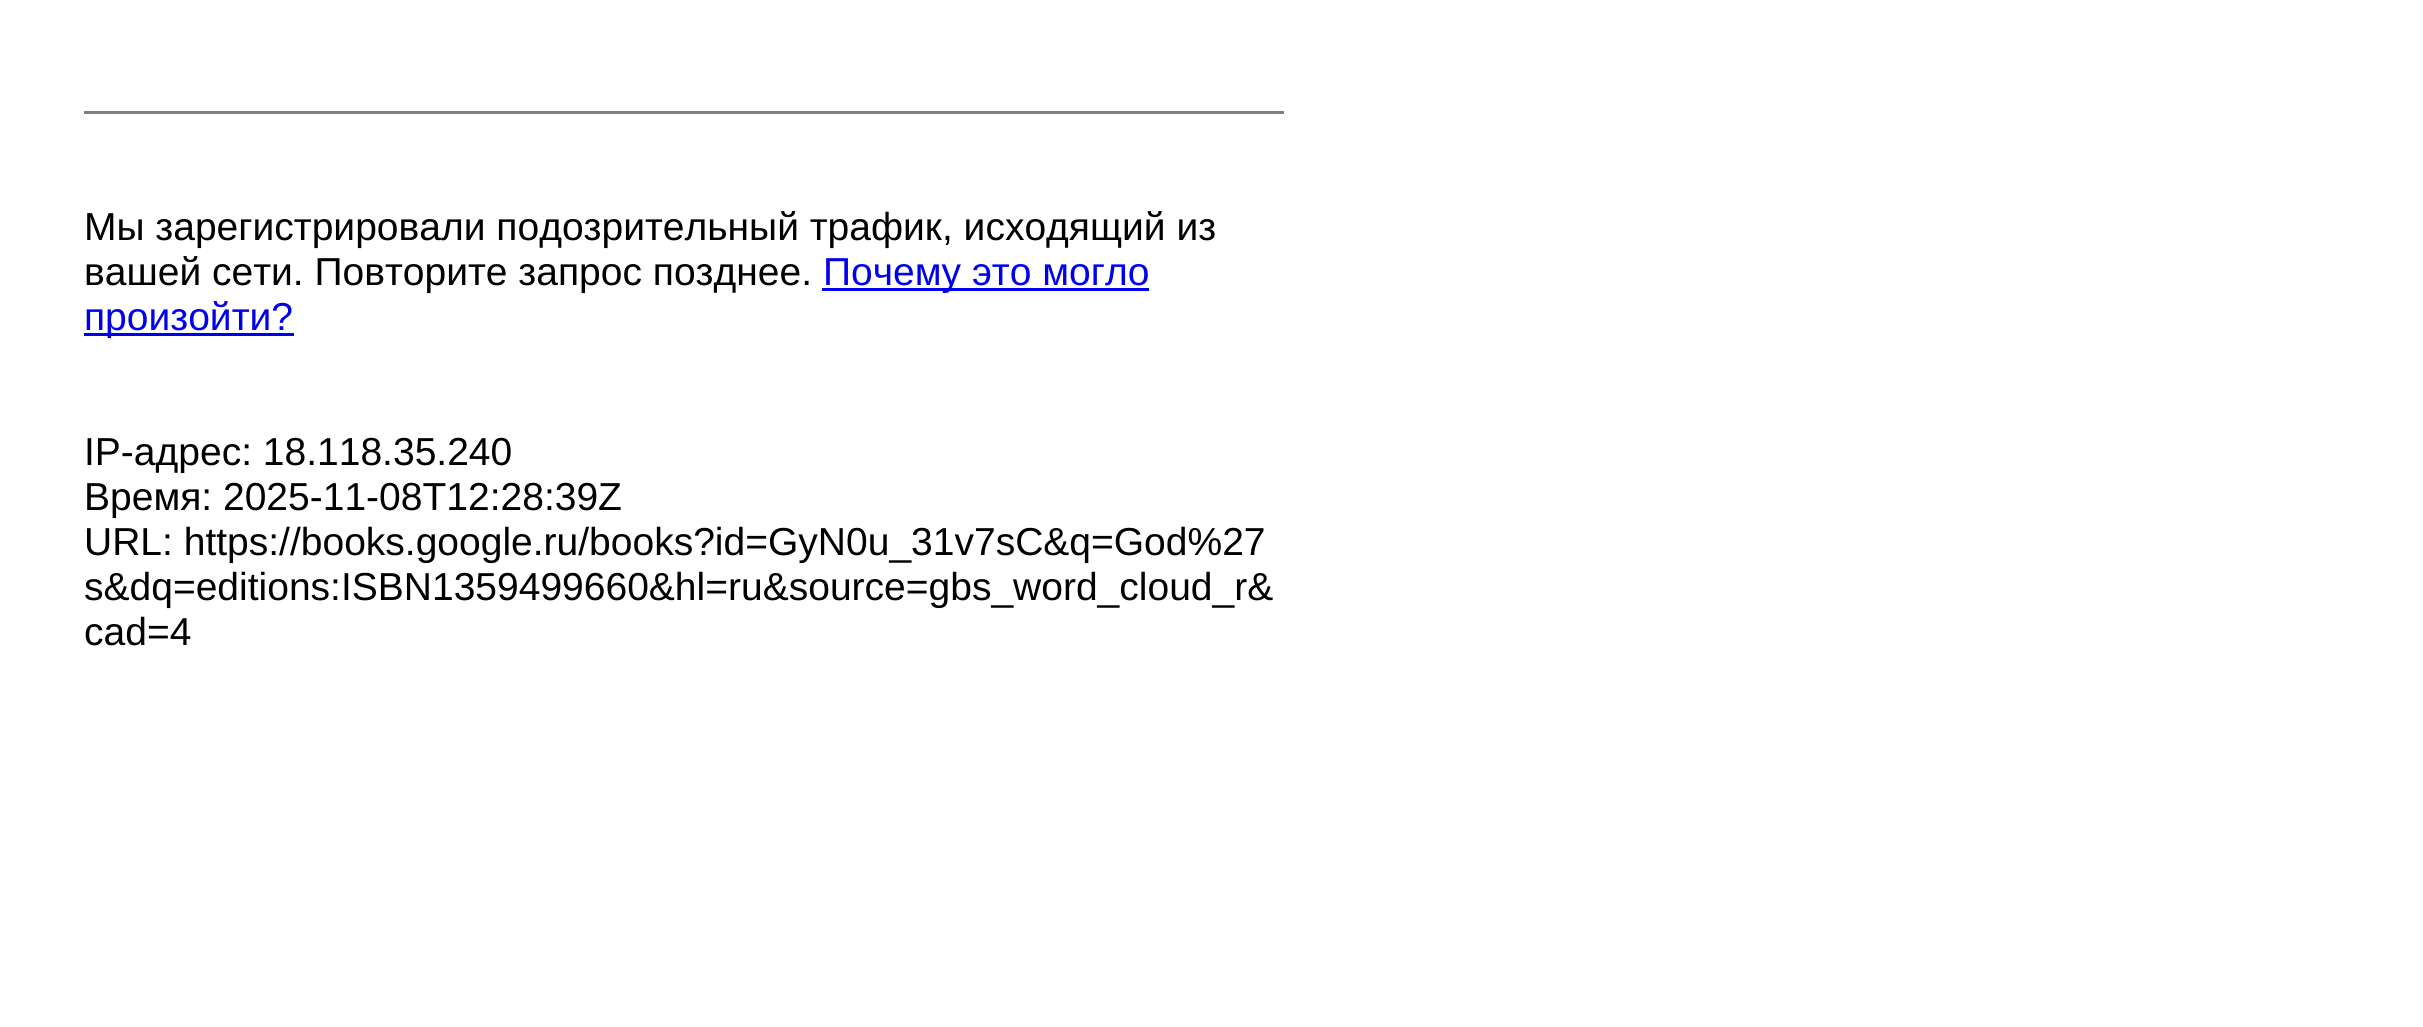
#include <cairo.h>
#include <math.h>
#include <stddef.h>

static cairo_t *c;
static void C(unsigned color){cairo_set_source_rgb(c, (color >> 16) / 255.0, (color >> 8 & 255) / 255.0, (color & 255) / 255.0);}
static void F(const char *family, double size, int italic, int bold){cairo_select_font_face(c, family, italic ? CAIRO_FONT_SLANT_ITALIC : CAIRO_FONT_SLANT_NORMAL,bold ? CAIRO_FONT_WEIGHT_BOLD : CAIRO_FONT_WEIGHT_NORMAL);cairo_set_font_size(c, size);}
static void T(double x, double y, const char *s){cairo_move_to(c, x, y);cairo_show_text(c, s);}
static void R(double x, double y, double w, double h){cairo_rectangle(c, x, y, w, h);cairo_fill(c);}
int main(void) {
cairo_surface_t *surface = cairo_image_surface_create(CAIRO_FORMAT_RGB24, 2423, 1027);
c = cairo_create(surface);
cairo_font_options_t *options = cairo_font_options_create();
cairo_font_options_set_hint_metrics(options, CAIRO_HINT_METRICS_OFF);
cairo_font_options_set_hint_style(options, CAIRO_HINT_STYLE_NONE);
cairo_set_font_options(c, options);
cairo_set_miter_limit(c, 4);
C(0xffffff);
cairo_paint(c);
C(0x808080);
R(84,111,1200,3);
F("Liberation Sans",39,0,0);
C(0x000000);
T(84,240,"Мы зарегистрировали подозрительный трафик, исходящий из");
T(84,285,"вашей сети. Повторите запрос позднее.");
C(0x0000ee);
R(822,288,327,3);
T(823,285,"Почему это могло");
R(84,333,210,3);
T(84,330,"произойти?");
C(0x000000);
T(84,465,"IP-адрес: 18.118.35.240");
T(84,510,"Время: 2025-11-08T12:28:39Z");
T(84,555,"URL: https://books.google.ru/books?id=GyN0u_31v7sC&q=God%27");
T(84,600,"s&dq=editions:ISBN1359499660&hl=ru&source=gbs_word_cloud_r&");
T(84,645,"cad=4");
cairo_surface_write_to_png(surface, "o.png");
cairo_font_options_destroy(options);
cairo_destroy(c);
cairo_surface_destroy(surface);
return 0;
}
